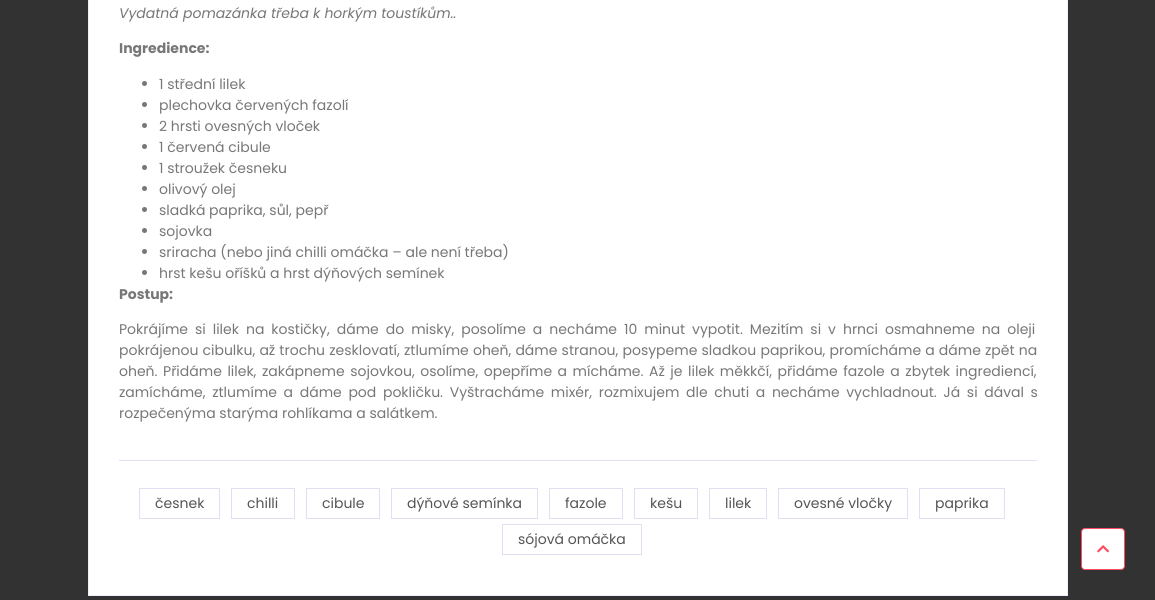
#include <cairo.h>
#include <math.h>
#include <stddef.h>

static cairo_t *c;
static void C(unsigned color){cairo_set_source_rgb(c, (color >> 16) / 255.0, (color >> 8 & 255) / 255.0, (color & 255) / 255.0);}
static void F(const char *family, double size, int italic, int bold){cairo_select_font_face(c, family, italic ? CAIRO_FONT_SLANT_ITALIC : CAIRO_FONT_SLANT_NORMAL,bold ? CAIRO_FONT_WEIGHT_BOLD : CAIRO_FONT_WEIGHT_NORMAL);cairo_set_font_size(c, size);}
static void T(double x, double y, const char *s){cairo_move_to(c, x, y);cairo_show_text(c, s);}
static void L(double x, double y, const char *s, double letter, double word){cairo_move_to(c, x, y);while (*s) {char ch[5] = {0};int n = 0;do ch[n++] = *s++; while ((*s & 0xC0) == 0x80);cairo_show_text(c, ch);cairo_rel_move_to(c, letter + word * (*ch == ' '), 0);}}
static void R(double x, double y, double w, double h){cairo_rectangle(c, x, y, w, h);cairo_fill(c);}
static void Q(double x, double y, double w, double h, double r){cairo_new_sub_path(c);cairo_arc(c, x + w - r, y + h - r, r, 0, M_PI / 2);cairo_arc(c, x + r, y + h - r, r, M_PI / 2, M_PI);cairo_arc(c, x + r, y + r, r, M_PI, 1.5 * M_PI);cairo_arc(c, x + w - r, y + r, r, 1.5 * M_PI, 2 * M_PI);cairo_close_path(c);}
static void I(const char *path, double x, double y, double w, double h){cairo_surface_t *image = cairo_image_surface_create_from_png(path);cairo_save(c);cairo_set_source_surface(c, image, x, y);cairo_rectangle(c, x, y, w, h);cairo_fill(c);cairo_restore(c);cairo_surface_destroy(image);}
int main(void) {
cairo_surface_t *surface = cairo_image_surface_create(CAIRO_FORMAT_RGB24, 1155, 600);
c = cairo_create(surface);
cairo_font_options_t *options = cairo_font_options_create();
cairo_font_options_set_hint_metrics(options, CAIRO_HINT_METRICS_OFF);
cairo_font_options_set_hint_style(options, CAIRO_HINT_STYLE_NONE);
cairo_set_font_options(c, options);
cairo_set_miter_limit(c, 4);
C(0x323232);
cairo_paint(c);
C(0xffffff);
cairo_rectangle(c,88.5,-.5,979,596);
cairo_fill_preserve(c);
C(0xeeeefc);
cairo_set_line_width(c,1);
cairo_stroke(c);
F("Poppins",14,1,0);
C(0x777777);
T(119,18,"Vydatná pomazánka třeba k horkým toustíkům..");
F("Poppins",14,0,1);
T(119,53,"Ingredience:");
cairo_new_path(c);
cairo_arc(c,144.5,83.5,2.5,0,2 * M_PI);
cairo_fill(c);
F("Poppins",14,0,0);
T(159,89,"1 střední lilek");
cairo_new_path(c);
cairo_arc(c,144.5,104.5,2.5,0,2 * M_PI);
cairo_fill(c);
T(159,110,"plechovka červených fazolí");
cairo_new_path(c);
cairo_arc(c,144.5,125.5,2.5,0,2 * M_PI);
cairo_fill(c);
T(159,131,"2 hrsti ovesných vloček");
cairo_new_path(c);
cairo_arc(c,144.5,146.5,2.5,0,2 * M_PI);
cairo_fill(c);
T(159,152,"1 červená cibule");
cairo_new_path(c);
cairo_arc(c,144.5,167.5,2.5,0,2 * M_PI);
cairo_fill(c);
T(159,173,"1 stroužek česneku");
cairo_new_path(c);
cairo_arc(c,144.5,188.5,2.5,0,2 * M_PI);
cairo_fill(c);
T(159,194,"olivový olej");
cairo_new_path(c);
cairo_arc(c,144.5,209.5,2.5,0,2 * M_PI);
cairo_fill(c);
T(159,215,"sladká paprika, sůl, pepř");
cairo_new_path(c);
cairo_arc(c,144.5,230.5,2.5,0,2 * M_PI);
cairo_fill(c);
T(159,236,"sojovka");
cairo_new_path(c);
cairo_arc(c,144.5,251.5,2.5,0,2 * M_PI);
cairo_fill(c);
T(159,257,"sriracha (nebo jiná chilli omáčka – ale není třeba)");
cairo_new_path(c);
cairo_arc(c,144.5,272.5,2.5,0,2 * M_PI);
cairo_fill(c);
T(159,278,"hrst kešu oříšků a hrst dýňových semínek");
F("Poppins",14,0,1);
T(119,299,"Postup:");
F("Poppins",14,0,0);
L(119,334,"Pokrájíme si lilek na kostičky, dáme do misky, posolíme a necháme 10 minut vypotit. Mezitím si v hrnci osmahneme na oleji",0,3.25);
L(119,355,"pokrájenou cibulku, až trochu zesklovatí, ztlumíme oheň, dáme stranou, posypeme sladkou paprikou, promícháme a dáme zpět na",0,.4);
L(119,376,"oheň. Přidáme lilek, zakápneme sojovkou, osolíme, opepříme a mícháme. Až je lilek měkkčí, přidáme fazole a zbytek ingrediencí,",0,1.8);
L(119,397,"zamícháme, ztlumíme a dáme pod pokličku. Vyštracháme mixér, rozmixujem dle chuti a necháme vychladnout. Já si dával s",0,2.9);
T(119,418,"rozpečenýma starýma rohlíkama a salátkem.");
C(0xe0e0f2);
R(119,460,918,1);
cairo_rectangle(c,139.5,488.5,80,30);
cairo_stroke(c);
C(0x555555);
T(155,508,"česnek");
cairo_rectangle(c,231.5,488.5,63,30);
C(0xe0e0f2);
cairo_stroke(c);
C(0x555555);
T(247,508,"chilli");
cairo_rectangle(c,306.5,488.5,73,30);
C(0xe0e0f2);
cairo_stroke(c);
C(0x555555);
T(322,508,"cibule");
cairo_rectangle(c,391.5,488.5,146,30);
C(0xe0e0f2);
cairo_stroke(c);
C(0x555555);
T(407,508,"dýňové semínka");
cairo_rectangle(c,549.5,488.5,73,30);
C(0xe0e0f2);
cairo_stroke(c);
C(0x555555);
T(565,508,"fazole");
cairo_rectangle(c,634.5,488.5,63,30);
C(0xe0e0f2);
cairo_stroke(c);
C(0x555555);
T(650,508,"kešu");
cairo_rectangle(c,709.5,488.5,57,30);
C(0xe0e0f2);
cairo_stroke(c);
C(0x555555);
T(725,508,"lilek");
cairo_rectangle(c,778.5,488.5,129,30);
C(0xe0e0f2);
cairo_stroke(c);
C(0x555555);
T(794,508,"ovesné vločky");
cairo_rectangle(c,919.5,488.5,85,30);
C(0xe0e0f2);
cairo_stroke(c);
C(0x555555);
T(935,508,"paprika");
cairo_rectangle(c,502.5,524.5,139,30);
C(0xe0e0f2);
cairo_stroke(c);
C(0x555555);
T(518,544,"sójová omáčka");
C(0xffffff);
Q(1081.5,528.5,43,41,3.5);
cairo_fill_preserve(c);
C(0xff4c60);
cairo_stroke(c);
I("1.png",1097,545,12,8);
cairo_surface_write_to_png(surface, "o.png");
cairo_font_options_destroy(options);
cairo_destroy(c);
cairo_surface_destroy(surface);
return 0;
}
